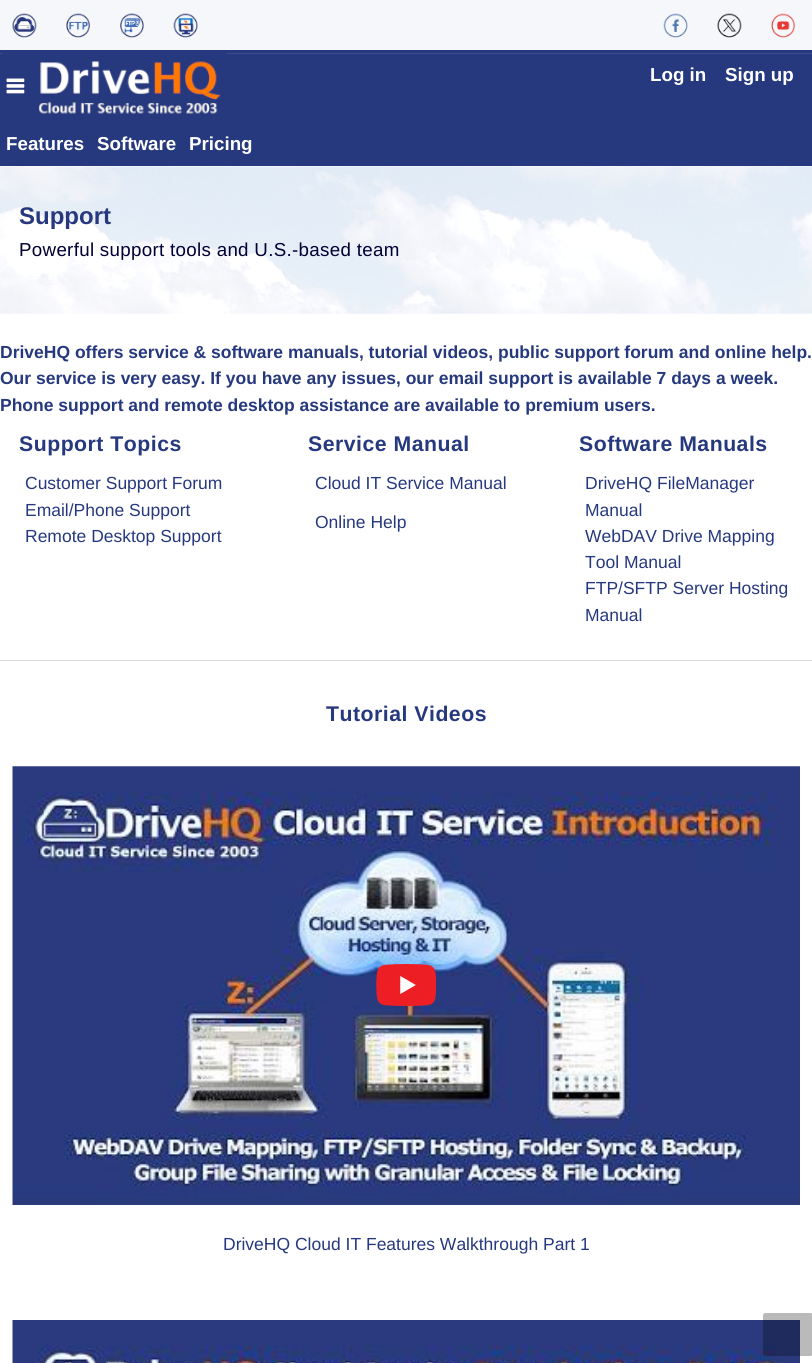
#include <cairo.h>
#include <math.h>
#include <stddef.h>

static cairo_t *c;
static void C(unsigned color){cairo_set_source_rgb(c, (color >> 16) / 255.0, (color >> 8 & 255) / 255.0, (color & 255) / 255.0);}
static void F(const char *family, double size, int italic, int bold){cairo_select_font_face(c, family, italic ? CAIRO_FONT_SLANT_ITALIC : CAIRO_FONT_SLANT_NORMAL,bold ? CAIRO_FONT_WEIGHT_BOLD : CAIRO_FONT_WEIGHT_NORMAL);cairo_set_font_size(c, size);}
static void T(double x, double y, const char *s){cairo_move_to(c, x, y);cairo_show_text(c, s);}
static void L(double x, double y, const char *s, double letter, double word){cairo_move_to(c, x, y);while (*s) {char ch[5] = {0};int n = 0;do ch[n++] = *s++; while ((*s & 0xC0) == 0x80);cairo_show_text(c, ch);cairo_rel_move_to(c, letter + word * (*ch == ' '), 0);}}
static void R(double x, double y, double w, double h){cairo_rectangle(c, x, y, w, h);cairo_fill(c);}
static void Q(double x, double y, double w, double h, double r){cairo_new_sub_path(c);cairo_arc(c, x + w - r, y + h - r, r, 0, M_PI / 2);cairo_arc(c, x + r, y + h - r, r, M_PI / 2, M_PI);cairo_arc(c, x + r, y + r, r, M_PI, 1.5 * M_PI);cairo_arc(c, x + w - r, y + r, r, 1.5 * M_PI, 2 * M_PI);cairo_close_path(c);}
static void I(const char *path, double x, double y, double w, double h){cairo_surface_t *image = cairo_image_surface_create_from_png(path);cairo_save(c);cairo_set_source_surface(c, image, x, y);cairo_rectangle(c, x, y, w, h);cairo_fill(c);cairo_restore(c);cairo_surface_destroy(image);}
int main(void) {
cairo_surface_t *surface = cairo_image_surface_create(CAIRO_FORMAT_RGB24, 812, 1363);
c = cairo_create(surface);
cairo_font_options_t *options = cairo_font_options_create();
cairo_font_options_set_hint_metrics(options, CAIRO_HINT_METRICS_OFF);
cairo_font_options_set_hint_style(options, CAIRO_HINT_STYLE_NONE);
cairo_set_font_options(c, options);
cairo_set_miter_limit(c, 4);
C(0xffffff);
cairo_paint(c);
C(0xf5f7fa);
R(0,0,812,50);
I("1.png",12,13,25,25);
I("2.png",66,13,24,25);
I("3.png",120,13,24,25);
I("4.png",173,13,25,25);
I("5.png",663,13,25,25);
I("6.png",717,13,25,25);
I("7.png",771,13,24,25);
C(0x26397e);
R(0,50,812,116);
C(0x3c4d8b);
R(0,53,812,1);
C(0x26397e);
cairo_new_path(c);
cairo_move_to(c,4,53);
cairo_line_to(c,225,53);
cairo_curve_to(c,227,53,229,55,229,57);
cairo_line_to(c,229,121);
cairo_line_to(c,0,121);
cairo_line_to(c,0,57);
cairo_curve_to(c,0,55,2,53,4,53);
cairo_close_path(c);
cairo_fill(c);
I("8.png",6,78,19,16);
I("9.png",38,61,183,53);
F("Liberation Sans",18.75,0,1);
C(0xffffff);
T(650,81,"Log in");
T(725,81,"Sign up");
T(6,150,"Features");
T(97,150,"Software");
T(189,150,"Pricing");
I("10.png",0,166,812,148);
F("Liberation Sans",24,0,1);
C(0x26397e);
T(19,224,"Support");
F("Liberation Sans",18.75,0,0);
C(0x000033);
L(19,256,"Powerful support tools and U.S.-based team",.3,0);
F("Liberation Sans",17.5,0,1);
C(0x26397e);
T(0,358,"DriveHQ offers service & software manuals, tutorial videos, public support forum and online help.");
T(0,384,"Our service is very easy. If you have any issues, our email support is available 7 days a week.");
T(0,411,"Phone support and remote desktop assistance are available to premium users.");
F("Liberation Sans",21.25,0,1);
L(19,451,"Support Topics",.5,0);
F("Liberation Sans",17.5,0,0);
T(25,489,"Customer Support Forum");
T(25,516,"Email/Phone Support");
T(25,542,"Remote Desktop Support");
F("Liberation Sans",21.25,0,1);
L(308,451,"Service Manual",.5,0);
F("Liberation Sans",17.5,0,0);
T(315,489,"Cloud IT Service Manual");
T(315,528,"Online Help");
F("Liberation Sans",21.25,0,1);
L(579,451,"Software Manuals",.5,0);
F("Liberation Sans",17.5,0,0);
T(585,489,"DriveHQ FileManager");
T(585,516,"Manual");
T(585,542,"WebDAV Drive Mapping");
T(585,568,"Tool Manual");
T(585,594,"FTP/SFTP Server Hosting");
T(585,621,"Manual");
C(0xdbdbdb);
R(0,660,812,1);
F("Liberation Sans",21.25,0,1);
C(0x26397e);
L(326,721,"Tutorial Videos",.5,0);
I("11.png",12,766,788,439);
I("12.png",376,964,60,42);
F("Liberation Sans",17.5,0,0);
T(223,1250,"DriveHQ Cloud IT Features Walkthrough Part 1");
I("13.png",12,1320,788,43);
cairo_set_source_rgba(c,0,0,0,0.27);
Q(763,1313,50,43,2.5);
cairo_fill(c);
cairo_surface_write_to_png(surface, "o.png");
cairo_font_options_destroy(options);
cairo_destroy(c);
cairo_surface_destroy(surface);
return 0;
}
